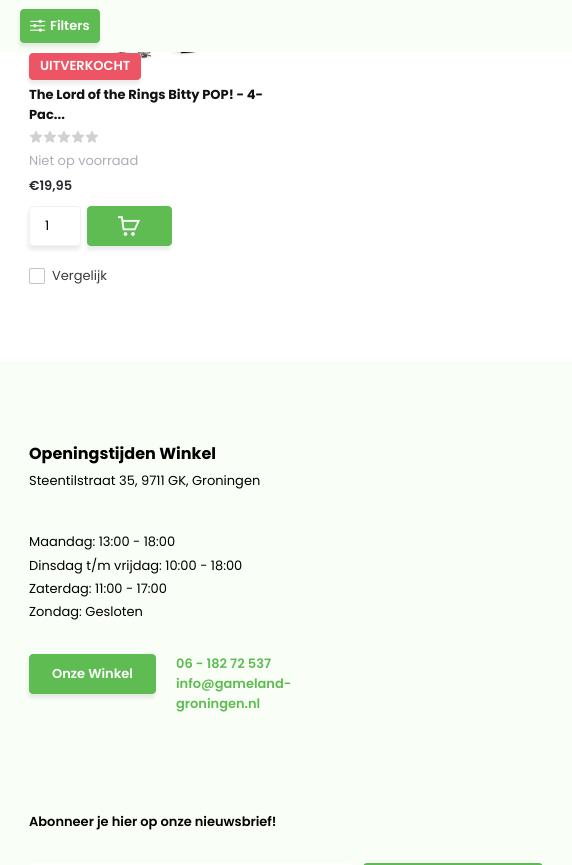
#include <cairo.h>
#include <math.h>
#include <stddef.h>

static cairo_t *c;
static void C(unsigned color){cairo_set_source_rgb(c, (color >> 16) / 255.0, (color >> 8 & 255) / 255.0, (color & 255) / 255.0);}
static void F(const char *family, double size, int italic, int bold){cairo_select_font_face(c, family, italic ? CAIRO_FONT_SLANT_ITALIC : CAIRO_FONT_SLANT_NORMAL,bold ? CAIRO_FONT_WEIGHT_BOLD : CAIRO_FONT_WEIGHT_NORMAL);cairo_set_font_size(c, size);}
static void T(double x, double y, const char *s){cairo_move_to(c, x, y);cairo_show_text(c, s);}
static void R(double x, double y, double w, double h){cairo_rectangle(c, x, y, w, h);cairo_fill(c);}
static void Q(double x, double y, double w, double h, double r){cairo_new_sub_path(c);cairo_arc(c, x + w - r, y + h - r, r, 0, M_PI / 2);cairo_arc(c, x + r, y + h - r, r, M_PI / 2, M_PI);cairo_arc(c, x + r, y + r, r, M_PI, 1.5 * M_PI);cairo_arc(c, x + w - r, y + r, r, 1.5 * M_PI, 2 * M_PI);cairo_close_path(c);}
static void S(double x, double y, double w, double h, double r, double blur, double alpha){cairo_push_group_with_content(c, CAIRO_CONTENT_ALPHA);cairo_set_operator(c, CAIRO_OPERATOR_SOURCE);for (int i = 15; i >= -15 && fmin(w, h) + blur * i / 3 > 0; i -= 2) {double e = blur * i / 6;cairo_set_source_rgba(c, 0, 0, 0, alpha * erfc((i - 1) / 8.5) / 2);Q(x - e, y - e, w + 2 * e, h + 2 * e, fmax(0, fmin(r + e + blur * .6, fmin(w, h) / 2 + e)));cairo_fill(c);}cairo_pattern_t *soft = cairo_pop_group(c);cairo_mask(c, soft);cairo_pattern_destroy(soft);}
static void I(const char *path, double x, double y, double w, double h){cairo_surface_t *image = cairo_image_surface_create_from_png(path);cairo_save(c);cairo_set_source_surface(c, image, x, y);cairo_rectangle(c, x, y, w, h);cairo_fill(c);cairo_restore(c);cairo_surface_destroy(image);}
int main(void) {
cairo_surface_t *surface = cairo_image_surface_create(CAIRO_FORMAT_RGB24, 572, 865);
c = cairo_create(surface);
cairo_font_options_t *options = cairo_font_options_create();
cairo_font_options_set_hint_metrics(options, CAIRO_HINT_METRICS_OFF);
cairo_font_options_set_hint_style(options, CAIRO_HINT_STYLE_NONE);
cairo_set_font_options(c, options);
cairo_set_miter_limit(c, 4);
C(0xffffff);
cairo_paint(c);
I("2.png",103,52,96,9);
C(0x000000);
S(28,57,112,27,4,2,.08);
C(0xf9fff7);
R(0,0,572,52);
C(0xed5565);
Q(29,53,112,27,4);
cairo_fill(c);
C(0x000000);
S(19,13,80,34,4,2,.08);
C(0x5ebc52);
Q(20,9,80,34,4);
cairo_fill(c);
I("1.png",30,19,16,13);
F("Poppins SemiBold",13,0,0);
C(0xffffff);
T(50,30,"Filters");
T(40,70,"UITVERKOCHT");
F("Poppins",13,0,1);
C(0x121212);
T(29,99,"The Lord of the Rings Bitty POP! - 4-");
T(29,119,"Pac...");
I("3.png",29,131,13,12);
I("3.png",43,131,13,12);
I("3.png",57,131,13,12);
I("3.png",71,131,13,12);
I("3.png",85,131,13,12);
F("Poppins",13,0,0);
C(0xadadba);
T(29,165,"Niet op voorraad");
Q(29.5,268.5,15,15,1.5);
C(0xc4c4c4);
cairo_set_line_width(c,1);
cairo_stroke(c);
C(0x393939);
T(52,280,"Vergelijk");
F("Poppins SemiBold",13,0,0);
C(0x282830);
T(29,190,"€19,95");
C(0x000000);
S(28,210,52,40,4,2,.08);
S(86,210,85,40,4,2,.08);
C(0xffffff);
Q(29.5,206.5,51,39,3.5);
cairo_fill_preserve(c);
C(0xf2f2f2);
cairo_stroke(c);
F("Poppins",13,0,0);
C(0x000000);
T(45,230,"1");
C(0x5ebc52);
Q(87,206,85,40,4);
cairo_fill(c);
I("4.png",118,216,22,20);
C(0xf9fff7);
R(0,361,572,504);
F("Poppins",16,0,1);
C(0x000000);
T(29,459,"Openingstijden Winkel");
F("Poppins",13,0,0);
T(29,485,"Steentilstraat 35, 9711 GK, Groningen");
T(29,546,"Maandag: 13:00 - 18:00");
T(29,570,"Dinsdag t/m vrijdag: 10:00 - 18:00");
T(29,593,"Zaterdag: 11:00 - 17:00");
T(29,616,"Zondag: Gesloten");
C(0x000000);
S(28,658,127,40,4,2,.08);
C(0x5ebc52);
Q(29,654,127,40,4);
cairo_fill(c);
F("Poppins SemiBold",13,0,0);
C(0xffffff);
T(52,678,"Onze Winkel");
C(0x5ebc52);
T(176,668,"06 - 182 72 537");
T(176,688,"info@gameland-");
T(176,708,"groningen.nl");
C(0x000000);
T(29,826,"Abonneer je hier op onze nieuwsbrief!");
C(0xffffff);
Q(29,863,324,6,4);
cairo_fill(c);
C(0x5ebc52);
Q(363,863,180,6,4);
cairo_fill(c);
cairo_surface_write_to_png(surface, "o.png");
cairo_font_options_destroy(options);
cairo_destroy(c);
cairo_surface_destroy(surface);
return 0;
}
